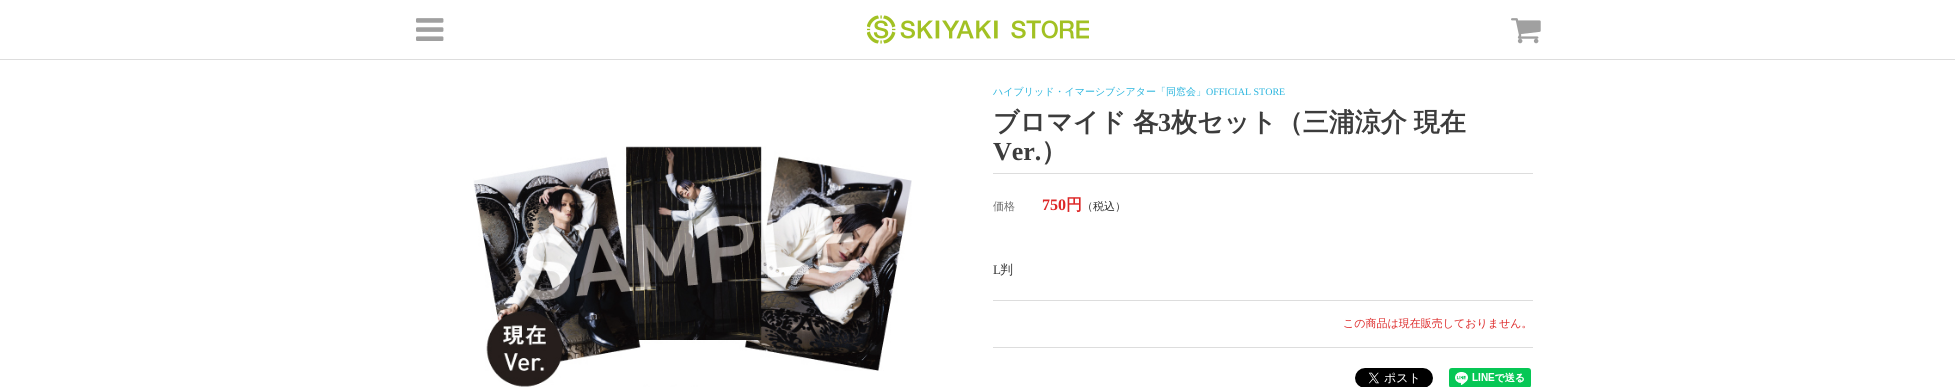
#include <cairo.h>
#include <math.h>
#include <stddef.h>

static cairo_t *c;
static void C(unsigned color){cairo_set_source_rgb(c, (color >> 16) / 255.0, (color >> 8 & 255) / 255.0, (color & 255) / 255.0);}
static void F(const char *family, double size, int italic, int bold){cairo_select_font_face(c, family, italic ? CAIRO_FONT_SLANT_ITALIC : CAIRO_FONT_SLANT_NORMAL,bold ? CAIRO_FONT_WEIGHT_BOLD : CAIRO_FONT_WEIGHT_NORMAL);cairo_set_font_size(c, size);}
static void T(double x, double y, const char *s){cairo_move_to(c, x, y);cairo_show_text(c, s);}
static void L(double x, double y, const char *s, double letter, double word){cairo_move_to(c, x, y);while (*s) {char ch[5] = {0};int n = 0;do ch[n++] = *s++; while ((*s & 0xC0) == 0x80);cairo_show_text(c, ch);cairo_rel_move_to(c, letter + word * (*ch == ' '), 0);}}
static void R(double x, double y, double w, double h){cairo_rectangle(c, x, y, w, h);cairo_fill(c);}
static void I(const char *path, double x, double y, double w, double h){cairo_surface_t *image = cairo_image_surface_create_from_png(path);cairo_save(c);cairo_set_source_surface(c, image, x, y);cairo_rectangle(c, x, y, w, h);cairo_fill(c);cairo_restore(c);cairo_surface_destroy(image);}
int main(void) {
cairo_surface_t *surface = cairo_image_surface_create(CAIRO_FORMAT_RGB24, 1955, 387);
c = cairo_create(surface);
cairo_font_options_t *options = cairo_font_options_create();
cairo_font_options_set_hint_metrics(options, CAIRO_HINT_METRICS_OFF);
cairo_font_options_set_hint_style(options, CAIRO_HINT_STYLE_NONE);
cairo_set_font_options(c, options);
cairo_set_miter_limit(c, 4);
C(0xffffff);
cairo_paint(c);
C(0xdddddd);
R(0,59,1955,1);
I("1.png",867,15,222,29);
I("2.png",416,18,28,23);
I("3.png",1511,18,30,26);
I("4.png",473,146,439,241);
R(993,173,540,1);
F("WenQuanYi Zen Hei Medium",10,0,0);
C(0x27b4dd);
T(993,95,"ハイブリッド・イマーシブシアター「同窓会」");
F("Liberation Serif",10,0,0);
T(1206,95,"OFFICIAL STORE");
F("WenQuanYi Zen Hei",26,0,1);
C(0x3c3c3c);
L(993,131,"ブロマイド 各",0,-1);
F("Liberation Serif",26,0,1);
T(1158,131,"3");
F("WenQuanYi Zen Hei",26,0,1);
L(1171,131,"枚セット（三浦涼介 現在",0,-1);
F("Liberation Serif",26,0,1);
T(993,160,"Ver.");
F("WenQuanYi Zen Hei",26,0,1);
T(1041,160,"）");
F("WenQuanYi Zen Hei Medium",11,0,0);
C(0x6e6e6e);
T(993,210,"価格");
F("Liberation Serif",16,0,1);
C(0xdd2727);
T(1042,210,"750");
F("WenQuanYi Zen Hei",16,0,1);
T(1066,210,"円");
F("WenQuanYi Zen Hei Medium",11,0,0);
C(0x333333);
T(1082,210,"（税込）");
F("Liberation Serif",13,0,0);
T(993,274,"L");
F("WenQuanYi Zen Hei Medium",13,0,0);
T(1000,274,"判");
C(0xdddddd);
R(993,300,540,1);
R(993,347,540,1);
F("WenQuanYi Zen Hei Medium",11,0,0);
C(0xdd2727);
T(1343,327,"この商品は現在販売しておりません。");
I("5.png",1355,368,78,19);
I("6.png",1449,368,82,19);
cairo_surface_write_to_png(surface, "o.png");
cairo_font_options_destroy(options);
cairo_destroy(c);
cairo_surface_destroy(surface);
return 0;
}
